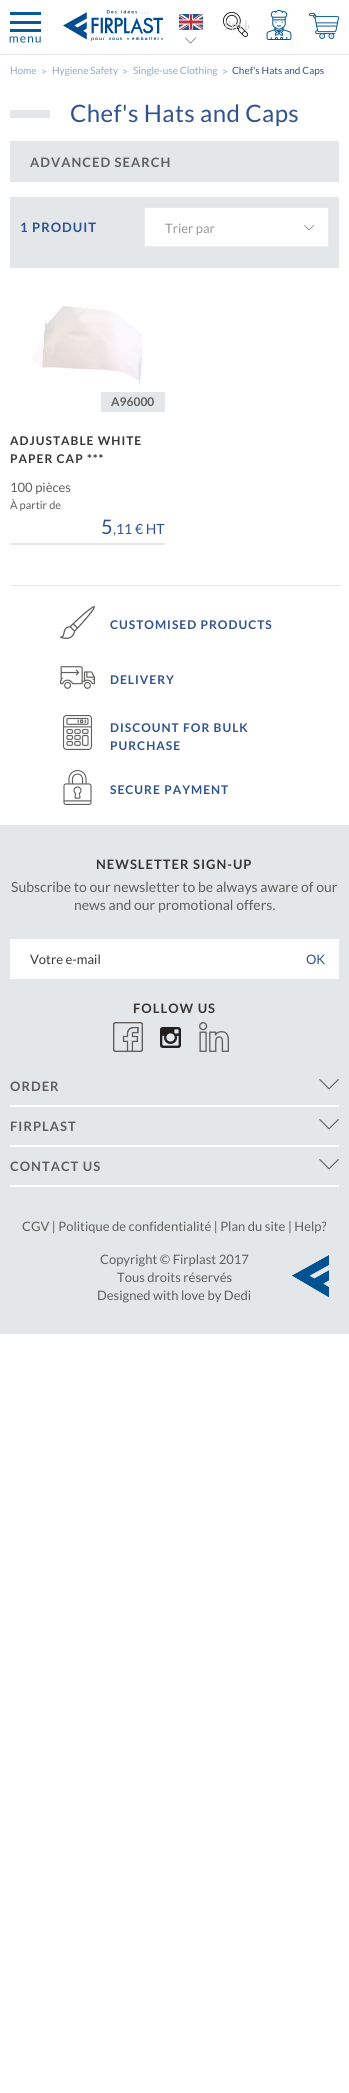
#include <cairo.h>
#include <math.h>
#include <stddef.h>

static cairo_t *c;
static void C(unsigned color){cairo_set_source_rgb(c, (color >> 16) / 255.0, (color >> 8 & 255) / 255.0, (color & 255) / 255.0);}
static void F(const char *family, double size, int italic, int bold){cairo_select_font_face(c, family, italic ? CAIRO_FONT_SLANT_ITALIC : CAIRO_FONT_SLANT_NORMAL,bold ? CAIRO_FONT_WEIGHT_BOLD : CAIRO_FONT_WEIGHT_NORMAL);cairo_set_font_size(c, size);}
static void T(double x, double y, const char *s){cairo_move_to(c, x, y);cairo_show_text(c, s);}
static void L(double x, double y, const char *s, double letter, double word){cairo_move_to(c, x, y);while (*s) {char ch[5] = {0};int n = 0;do ch[n++] = *s++; while ((*s & 0xC0) == 0x80);cairo_show_text(c, ch);cairo_rel_move_to(c, letter + word * (*ch == ' '), 0);}}
static void R(double x, double y, double w, double h){cairo_rectangle(c, x, y, w, h);cairo_fill(c);}
static void I(const char *path, double x, double y, double w, double h){cairo_surface_t *image = cairo_image_surface_create_from_png(path);cairo_save(c);cairo_set_source_surface(c, image, x, y);cairo_rectangle(c, x, y, w, h);cairo_fill(c);cairo_restore(c);cairo_surface_destroy(image);}
int main(void) {
cairo_surface_t *surface = cairo_image_surface_create(CAIRO_FORMAT_RGB24, 349, 2093);
c = cairo_create(surface);
cairo_font_options_t *options = cairo_font_options_create();
cairo_font_options_set_hint_metrics(options, CAIRO_HINT_METRICS_OFF);
cairo_font_options_set_hint_style(options, CAIRO_HINT_STYLE_NONE);
cairo_set_font_options(c, options);
cairo_set_miter_limit(c, 4);
C(0xffffff);
cairo_paint(c);
C(0xe4e7e9);
R(0,54,349,1);
I("1.png",9,12,32,31);
I("2.png",63,10,100,31);
I("3.png",179,14,24,16);
I("4.png",185,37,11,7);
I("5.png",223,12,25,25);
I("6.png",266,10,26,30);
I("7.png",309,13,30,26);
cairo_save(c);
cairo_rectangle(c,224,17,25,16);
cairo_clip(c);
F("Lato",13,0,0);
C(0xd2d2d2);
T(224,30,"I'm lo");
cairo_restore(c);
F("Lato",10,0,0);
C(0x94a7c2);
T(10,74,"Home");
T(41,75,">");
T(52,74,"Hygiene Safety");
T(122,75,">");
T(133,74,"Single-use Clothing");
T(222,75,">");
C(0x2f538f);
T(232,74,"Chef's Hats and Caps");
C(0xe4e7e9);
R(10,110,40,8);
F("Lato",24,0,0);
C(0x2f538f);
L(70,122,"Chef's Hats and Caps",.4,0);
C(0xe4e7e9);
R(10,141,329,41);
F("Lato",13,0,1);
C(0x605f5e);
L(30,167,"ADVANCED SEARCH",1,0);
C(0xe4e7e9);
R(10,197,329,71);
C(0x2f538f);
L(20,232,"1 PRODUIT",1,0);
C(0xffffff);
cairo_rectangle(c,144.5,207.5,184,39);
cairo_fill_preserve(c);
C(0xe9ebec);
cairo_set_line_width(c,1);
cairo_stroke(c);
F("Lato",13,0,0);
C(0x999999);
T(165,233,"Trier par");
I("8.png",304,225,10,5);
C(0xe4e7e9);
R(10,543,155,2);
I("9.png",32,306,111,79);
R(101,392,64,20);
F("Lato",12,0,1);
C(0x605f5e);
T(111,406,"A96000");
C(0x373635);
L(10,445,"ADJUSTABLE WHITE",1,0);
L(10,463,"PAPER CAP ***",1,0);
F("Lato",13,0,0);
C(0x605f5e);
T(10,492,"100 pièces");
F("Lato",11,0,0);
T(10,509,"À partir de");
F("Lato",20,0,0);
C(0x2f538f);
T(101,534,"5");
F("Lato",14,0,0);
T(113,534,",11 € HT");
C(0xe4e7e9);
R(11,585,329,1);
I("10.png",60,606,35,33);
F("Lato",12,0,1);
C(0x2f538f);
L(110,629,"CUSTOMISED PRODUCTS",1,0);
I("11.png",60,666,35,23);
L(110,684,"DELIVERY",1,0);
I("12.png",62,715,31,35);
L(110,732,"DISCOUNT FOR BULK",1,0);
L(110,750,"PURCHASE",1,0);
I("13.png",63,770,29,35);
L(110,794,"SECURE PAYMENT",1,0);
C(0xe4e7e9);
R(0,825,349,509);
F("Lato",13,0,1);
C(0x373635);
L(96,869,"NEWSLETTER SIGN-UP",1,0);
F("Lato",14,0,0);
C(0x605f5e);
T(11,892,"Subscribe to our newsletter to be always aware of our");
T(74,910,"news and our promotional offers.");
C(0xffffff);
R(10,939,329,40);
F("Lato",13,0,0);
C(0x373635);
T(30,964,"Votre e-mail");
C(0x2f538f);
T(306,964,"OK");
F("Lato",13,0,1);
C(0x373635);
L(133,1013,"FOLLOW US",1,0);
I("14.png",113,1022,30,30);
I("15.png",160,1027,21,21);
I("16.png",199,1022,30,30);
C(0xffffff);
R(10,1105,329,2);
C(0x605f5e);
L(10,1091,"ORDER",1,0);
I("17.png",319,1079,20,11);
C(0xffffff);
R(10,1145,329,2);
C(0x605f5e);
L(10,1131,"FIRPLAST",1,0);
I("17.png",319,1119,20,11);
C(0xffffff);
R(10,1185,329,2);
C(0x605f5e);
L(10,1171,"CONTACT US",1,0);
I("17.png",319,1159,20,11);
F("Lato",13,0,0);
T(22,1231,"CGV | Politique de confidentialité | Plan du site | Help?");
T(100,1264,"Copyright © Firplast 2017");
I("18.png",292,1255,37,43);
T(117,1282,"Tous droits réservés");
T(97,1300,"Designed with love by Dedi");
cairo_surface_write_to_png(surface, "o.png");
cairo_font_options_destroy(options);
cairo_destroy(c);
cairo_surface_destroy(surface);
return 0;
}
